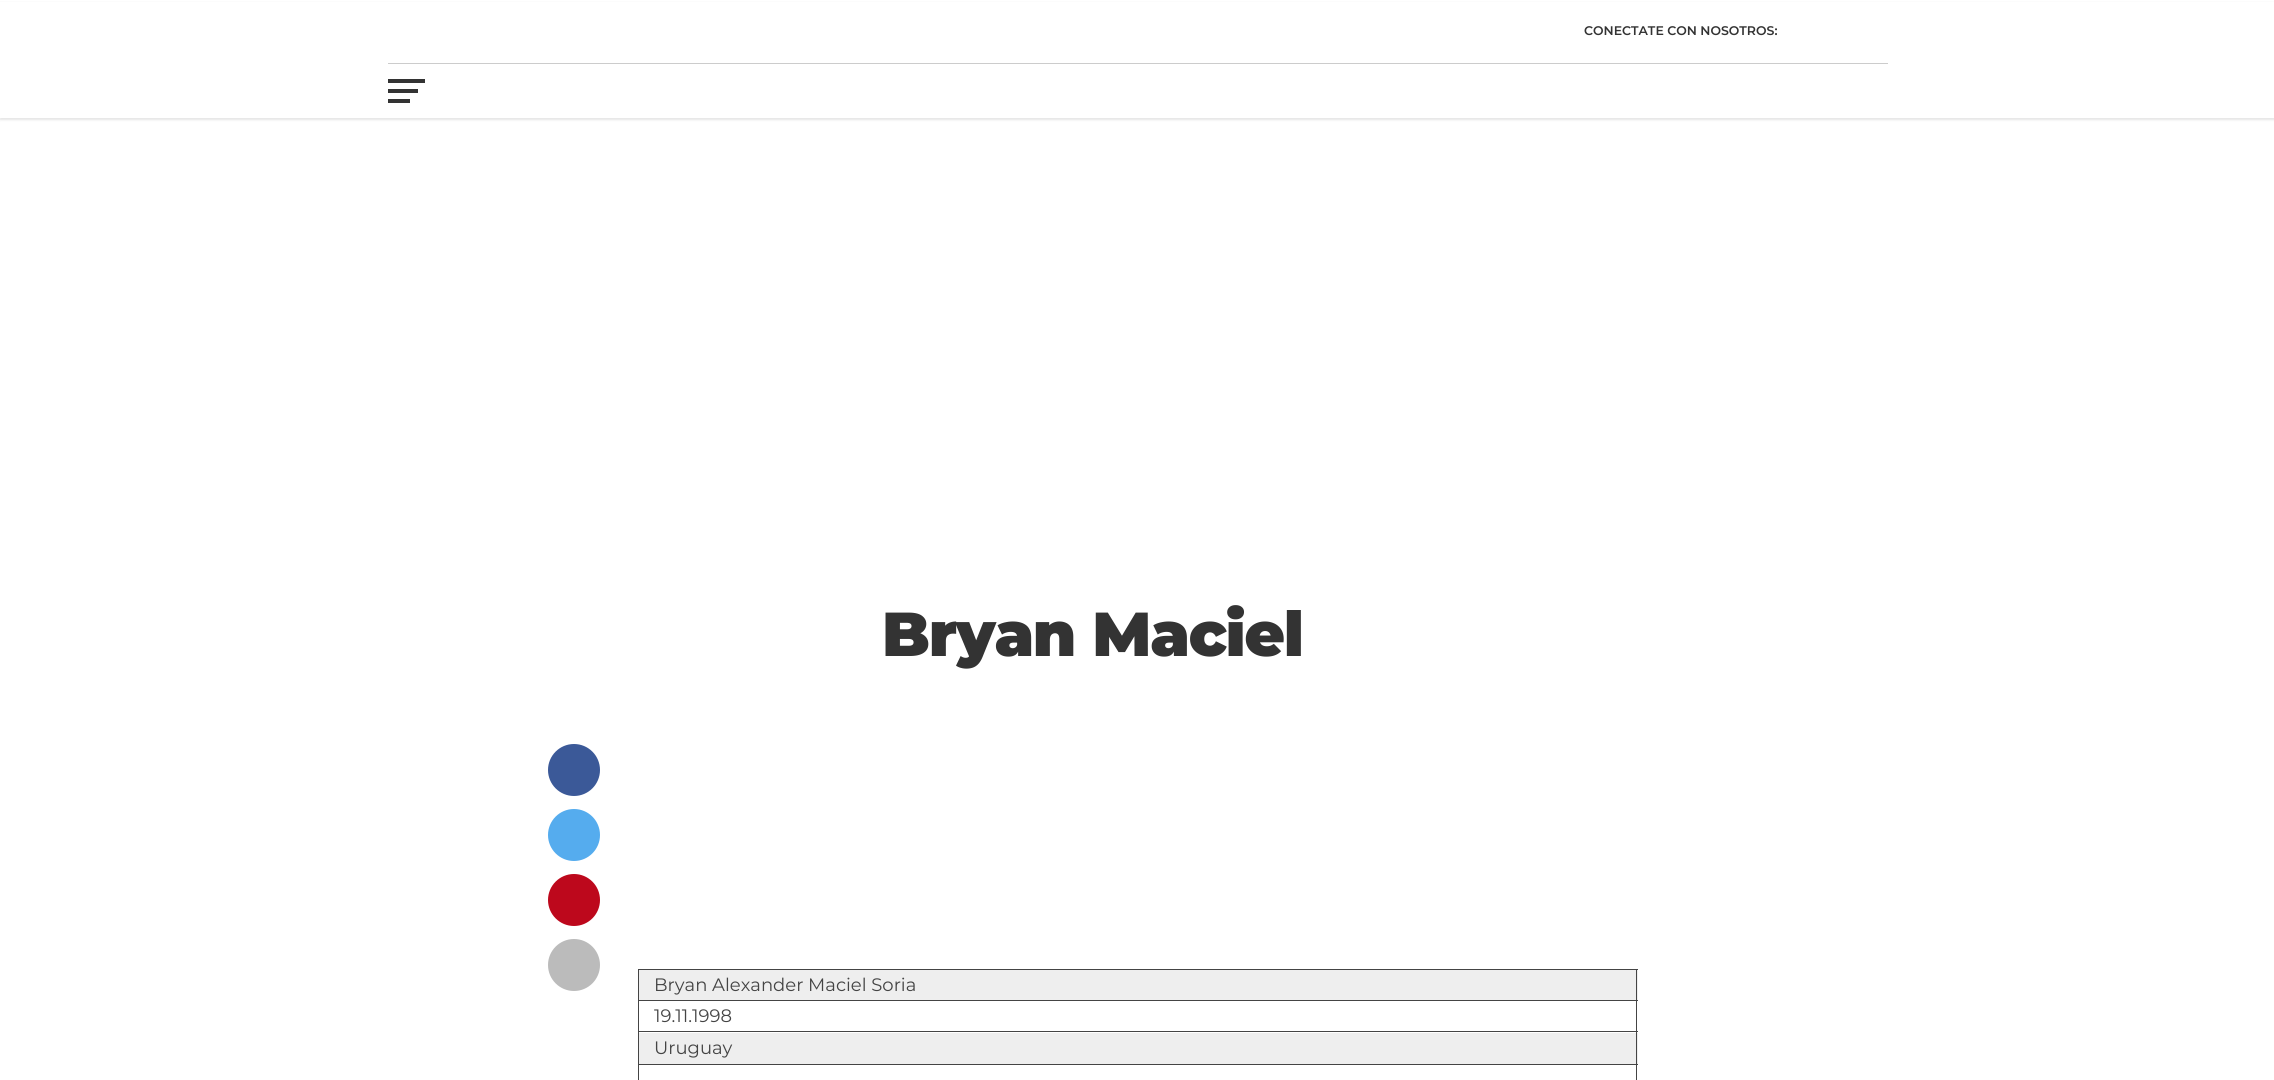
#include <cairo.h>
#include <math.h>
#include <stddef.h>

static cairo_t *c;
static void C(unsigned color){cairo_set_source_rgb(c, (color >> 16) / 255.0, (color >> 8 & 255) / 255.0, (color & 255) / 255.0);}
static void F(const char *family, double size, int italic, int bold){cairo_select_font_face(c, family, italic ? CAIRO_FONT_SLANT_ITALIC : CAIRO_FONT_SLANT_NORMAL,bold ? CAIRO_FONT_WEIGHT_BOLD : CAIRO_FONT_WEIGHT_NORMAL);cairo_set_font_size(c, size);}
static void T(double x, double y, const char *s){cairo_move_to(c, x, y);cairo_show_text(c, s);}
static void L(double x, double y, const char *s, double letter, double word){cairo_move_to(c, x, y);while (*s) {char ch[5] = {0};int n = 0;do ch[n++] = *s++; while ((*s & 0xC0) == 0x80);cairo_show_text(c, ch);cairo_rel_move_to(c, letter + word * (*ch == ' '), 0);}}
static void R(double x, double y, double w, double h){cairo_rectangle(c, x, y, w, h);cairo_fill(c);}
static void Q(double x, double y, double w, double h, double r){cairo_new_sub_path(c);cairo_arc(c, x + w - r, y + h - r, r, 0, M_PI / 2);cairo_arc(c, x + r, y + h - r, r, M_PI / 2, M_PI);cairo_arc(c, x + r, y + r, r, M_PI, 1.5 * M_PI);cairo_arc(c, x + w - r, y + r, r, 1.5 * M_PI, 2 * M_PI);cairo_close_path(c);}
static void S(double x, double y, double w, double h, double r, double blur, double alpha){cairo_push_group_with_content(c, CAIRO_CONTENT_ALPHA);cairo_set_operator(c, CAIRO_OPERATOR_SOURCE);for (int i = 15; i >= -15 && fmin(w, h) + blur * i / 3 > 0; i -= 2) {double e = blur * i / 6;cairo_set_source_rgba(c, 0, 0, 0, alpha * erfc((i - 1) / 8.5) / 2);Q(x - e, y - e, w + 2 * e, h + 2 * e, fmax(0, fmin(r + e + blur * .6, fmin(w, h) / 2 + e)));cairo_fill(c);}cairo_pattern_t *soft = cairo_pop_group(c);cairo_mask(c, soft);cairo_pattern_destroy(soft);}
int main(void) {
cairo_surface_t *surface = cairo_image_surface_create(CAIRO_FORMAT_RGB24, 2274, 1080);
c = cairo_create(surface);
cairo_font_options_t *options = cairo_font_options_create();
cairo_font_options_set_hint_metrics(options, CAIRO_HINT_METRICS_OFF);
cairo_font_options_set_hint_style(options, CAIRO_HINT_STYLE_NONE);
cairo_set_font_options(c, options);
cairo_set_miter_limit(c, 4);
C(0xffffff);
cairo_paint(c);
C(0x000000);
S(0,3,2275,117,0,1,.1);
C(0xffffff);
R(0,2,2274,116);
C(0xcccccc);
R(388,63,1500,1);
F("Montserrat SemiBold",12.5,0,0);
C(0x333333);
T(1584,35,"CONECTATE CON NOSOTROS:");
R(388,79,37,4);
R(388,89,30,4);
R(388,99,22,4);
F("Montserrat Black",62,0,0);
L(882,656,"Bryan Maciel",-1.25,0);
C(0x3b5998);
cairo_new_path(c);
cairo_arc(c,574,770,26,0,2 * M_PI);
cairo_fill(c);
C(0x55acee);
cairo_arc(c,574,835,26,0,2 * M_PI);
cairo_fill(c);
C(0xbd081c);
cairo_arc(c,574,900,26,0,2 * M_PI);
cairo_fill(c);
C(0xbbbbbb);
cairo_arc(c,574,965,26,0,2 * M_PI);
cairo_fill(c);
C(0xeeeeee);
R(639,970,999,30);
C(0x444444);
R(638,969,1000,1);
R(638,1000,1000,1);
R(638,1031,1000,1);
C(0xeeeeee);
R(639,1033,999,31);
C(0x444444);
R(638,1064,1000,1);
R(1636,1064,1,16);
R(1636,1031,1,34);
R(1636,1000,1,33);
R(1636,969,1,32);
R(638,1064,1,16);
R(638,1031,1,34);
R(638,1000,1,33);
R(638,969,1,32);
F("Montserrat",18,0,0);
T(654,991,"Bryan Alexander Maciel Soria");
T(654,1022,"19.11.1998");
T(654,1054,"Uruguay");
cairo_surface_write_to_png(surface, "o.png");
cairo_font_options_destroy(options);
cairo_destroy(c);
cairo_surface_destroy(surface);
return 0;
}
